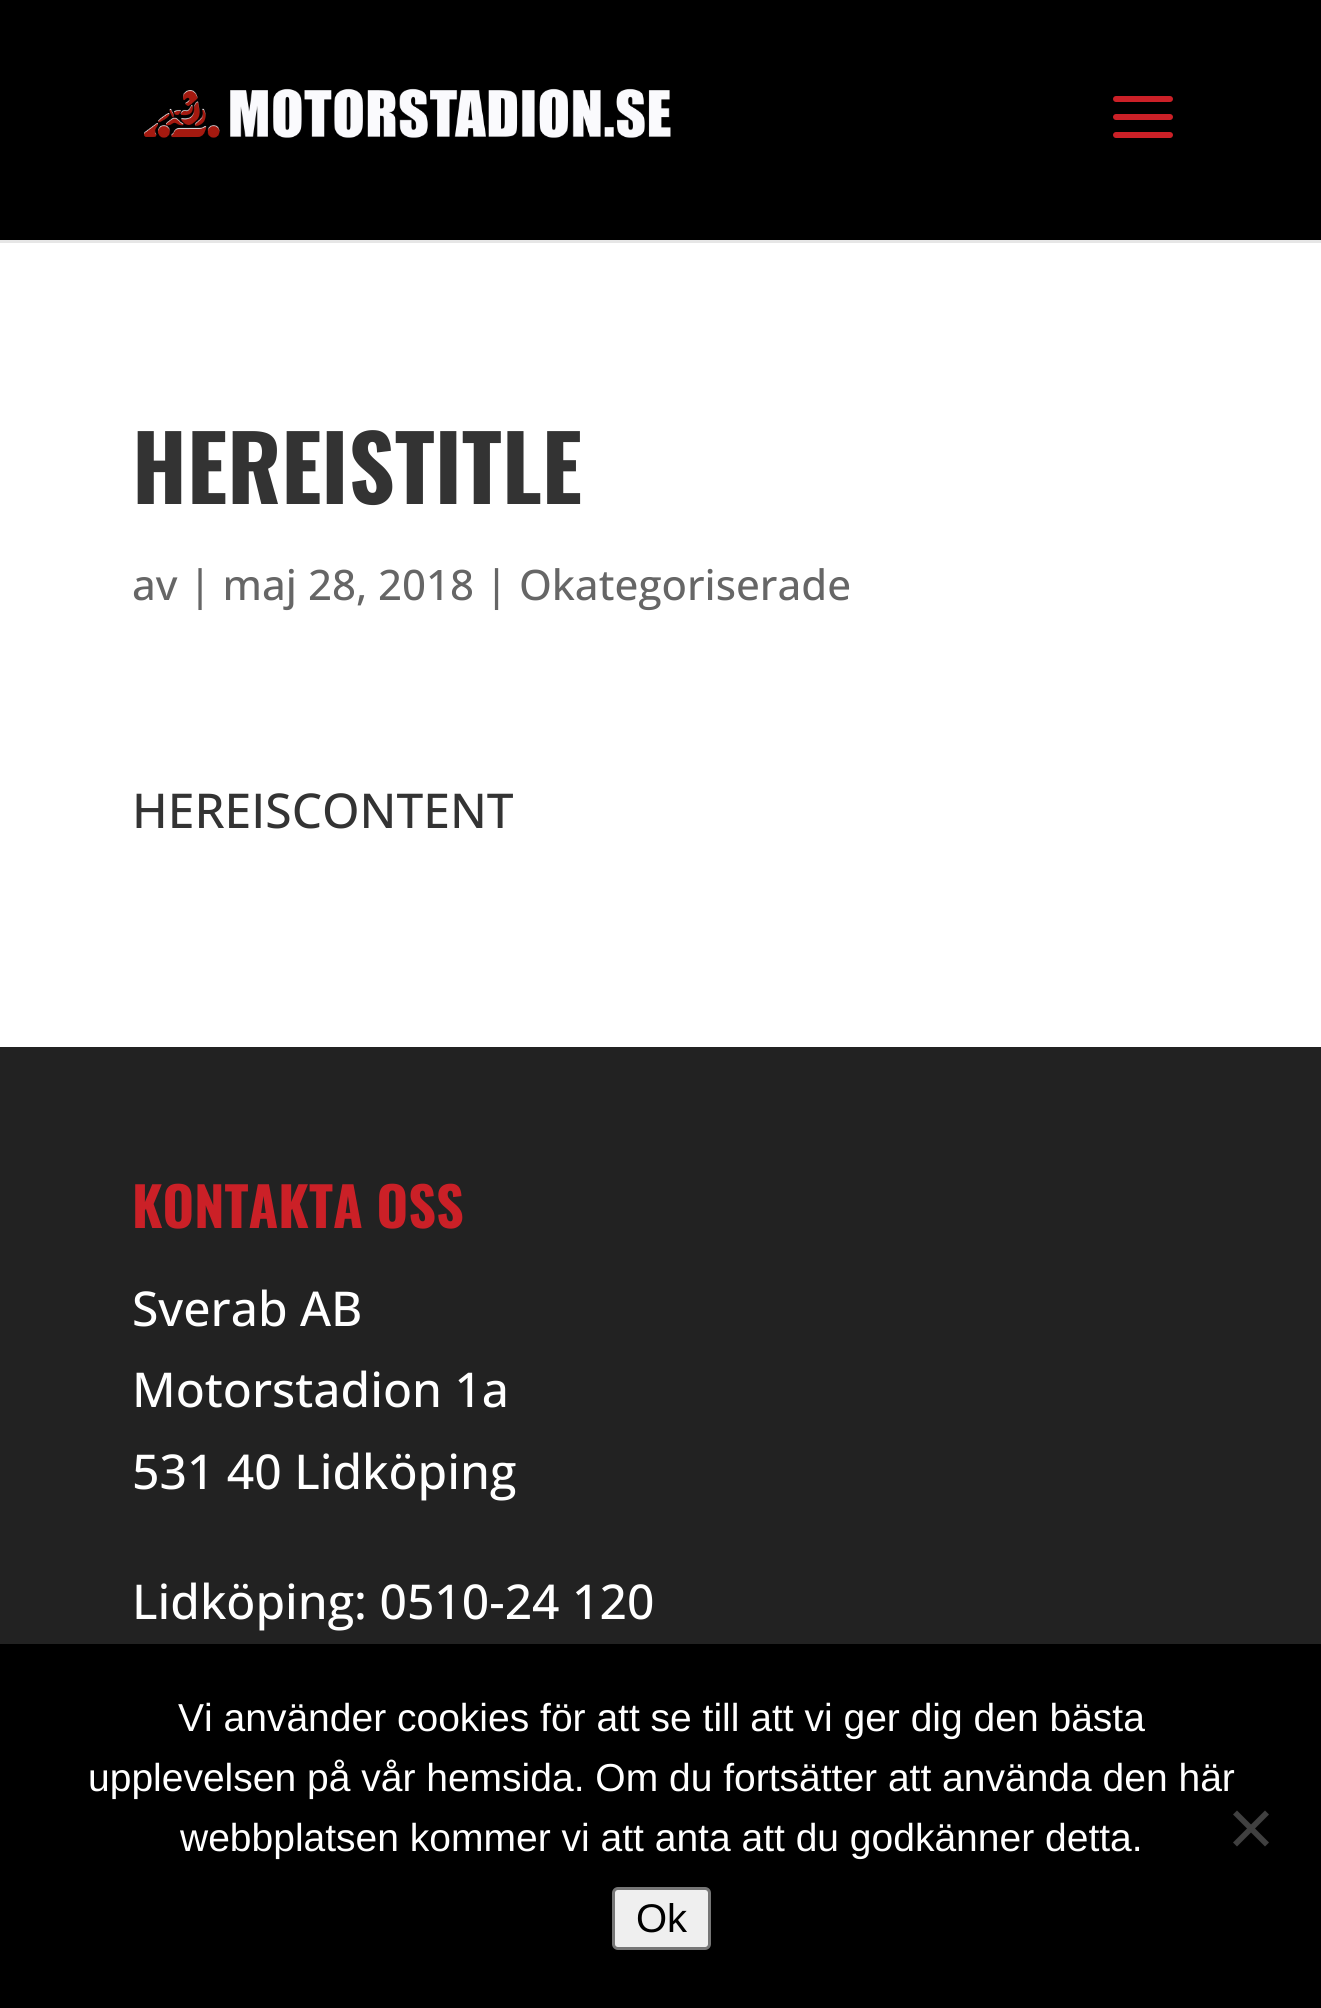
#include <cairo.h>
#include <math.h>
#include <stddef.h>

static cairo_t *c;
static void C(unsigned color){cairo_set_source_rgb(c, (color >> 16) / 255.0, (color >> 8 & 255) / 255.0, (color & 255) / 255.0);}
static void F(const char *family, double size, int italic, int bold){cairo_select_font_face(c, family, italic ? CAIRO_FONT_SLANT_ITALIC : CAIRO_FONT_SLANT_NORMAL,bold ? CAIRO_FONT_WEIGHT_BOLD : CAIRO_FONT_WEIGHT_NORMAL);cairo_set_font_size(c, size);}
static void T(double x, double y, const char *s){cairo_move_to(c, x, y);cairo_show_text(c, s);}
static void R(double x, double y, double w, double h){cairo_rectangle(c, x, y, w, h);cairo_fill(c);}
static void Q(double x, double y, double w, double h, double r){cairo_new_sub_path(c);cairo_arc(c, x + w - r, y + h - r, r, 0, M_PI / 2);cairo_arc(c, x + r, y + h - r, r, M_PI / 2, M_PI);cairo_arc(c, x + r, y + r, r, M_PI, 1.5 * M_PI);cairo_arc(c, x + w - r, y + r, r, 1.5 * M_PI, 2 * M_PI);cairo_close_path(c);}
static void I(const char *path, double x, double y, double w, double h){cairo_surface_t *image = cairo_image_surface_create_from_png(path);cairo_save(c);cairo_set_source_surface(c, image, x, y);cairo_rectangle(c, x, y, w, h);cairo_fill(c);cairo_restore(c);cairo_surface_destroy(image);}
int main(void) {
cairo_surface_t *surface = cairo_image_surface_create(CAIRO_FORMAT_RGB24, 1321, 2008);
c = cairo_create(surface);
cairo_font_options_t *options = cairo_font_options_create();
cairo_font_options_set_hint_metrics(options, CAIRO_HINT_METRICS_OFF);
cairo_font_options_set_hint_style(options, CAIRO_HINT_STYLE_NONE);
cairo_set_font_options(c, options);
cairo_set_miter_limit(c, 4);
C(0xffffff);
cairo_paint(c);
C(0xe6e6e6);
R(0,240,1321,3);
C(0x000000);
R(0,0,1321,240);
I("1.png",144,88,527,50);
I("2.png",1113,96,60,42);
F("Oswald",90,0,1);
C(0x333333);
T(132,504,"HEREISTITLE");
F("Open Sans Medium",42,0,0);
C(0x666666);
T(132,600,"av | maj 28, 2018 | Okategoriserade");
F("Open Sans Medium",48,0,0);
C(0x333333);
T(132,828,"HEREISCONTENT");
C(0x222222);
R(0,1047,1321,597);
F("Oswald",54,0,1);
C(0xcb2027);
T(132,1228,"KONTAKTA OSS");
F("Open Sans Medium",48,0,0);
C(0xffffff);
T(132,1326,"Sverab AB");
T(132,1407,"Motorstadion 1a");
T(132,1489,"531 40 Lidköping");
T(132,1619,"Lidköping: 0510-24 120");
C(0x000000);
R(0,1644,1321,364);
F("Liberation Sans",39,0,0);
C(0xffffff);
T(178,1731,"Vi använder cookies för att se till att vi ger dig den bästa");
T(88,1791,"upplevelsen på vår hemsida. Om du fortsätter att använda den här");
T(180,1851,"webbplatsen kommer vi att anta att du godkänner detta.");
C(0x404040);
cairo_new_path(c);
cairo_move_to(c,1265,1810.5);
cairo_line_to(c,1269,1814.5);
cairo_line_to(c,1237,1846.5);
cairo_line_to(c,1233,1842.5);
cairo_close_path(c);
cairo_fill(c);
cairo_new_path(c);
cairo_move_to(c,1233,1814.5);
cairo_line_to(c,1237,1810.5);
cairo_line_to(c,1269,1842.5);
cairo_line_to(c,1265,1846.5);
cairo_close_path(c);
cairo_fill(c);
C(0xefefef);
Q(613.5,1888.5,96,60,4.5);
cairo_fill_preserve(c);
C(0x767676);
cairo_set_line_width(c,3);
cairo_stroke(c);
F("Liberation Sans",40,0,0);
C(0x000000);
T(636,1932,"Ok");
cairo_surface_write_to_png(surface, "o.png");
cairo_font_options_destroy(options);
cairo_destroy(c);
cairo_surface_destroy(surface);
return 0;
}
